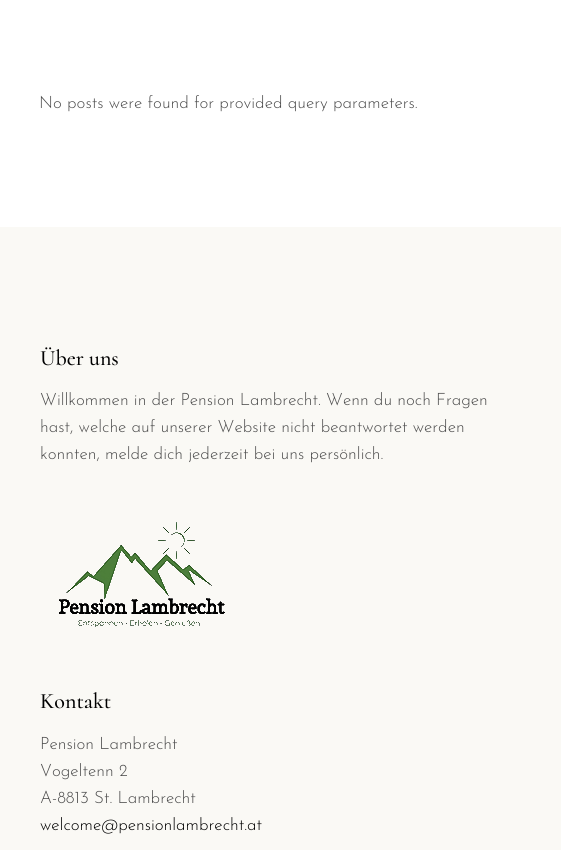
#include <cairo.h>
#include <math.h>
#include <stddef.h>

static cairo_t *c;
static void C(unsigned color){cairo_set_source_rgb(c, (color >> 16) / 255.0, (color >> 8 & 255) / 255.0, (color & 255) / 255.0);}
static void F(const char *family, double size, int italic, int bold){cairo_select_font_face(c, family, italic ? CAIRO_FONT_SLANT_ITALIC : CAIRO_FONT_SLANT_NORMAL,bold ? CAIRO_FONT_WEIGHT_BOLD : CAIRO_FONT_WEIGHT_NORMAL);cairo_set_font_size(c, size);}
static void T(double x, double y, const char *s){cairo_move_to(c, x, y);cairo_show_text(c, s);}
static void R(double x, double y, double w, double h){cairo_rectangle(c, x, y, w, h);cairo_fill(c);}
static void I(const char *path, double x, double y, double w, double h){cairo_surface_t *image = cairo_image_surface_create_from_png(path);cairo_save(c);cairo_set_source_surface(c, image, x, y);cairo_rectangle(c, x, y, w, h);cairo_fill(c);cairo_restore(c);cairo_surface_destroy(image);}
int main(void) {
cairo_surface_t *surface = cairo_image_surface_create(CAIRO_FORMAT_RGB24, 561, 850);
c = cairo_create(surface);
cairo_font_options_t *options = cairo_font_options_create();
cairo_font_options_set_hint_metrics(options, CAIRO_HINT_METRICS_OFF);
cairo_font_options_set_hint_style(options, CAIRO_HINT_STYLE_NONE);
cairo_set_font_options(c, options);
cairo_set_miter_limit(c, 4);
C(0xffffff);
cairo_paint(c);
F("Josefin Sans Light",17,0,0);
C(0x4d4d4d);
T(39,108,"No posts were found for provided query parameters.");
C(0xfaf9f5);
R(0,227,561,623);
F("Cormorant Medium",22,0,0);
C(0x000000);
T(40,365,"Über uns");
F("Josefin Sans Light",17,0,0);
C(0x4d4d4d);
T(40,405,"Willkommen in der Pension Lambrecht. Wenn du noch Fragen");
T(40,432,"hast, welche auf unserer Website nicht beantwortet werden");
T(40,459,"konnten, melde dich jederzeit bei uns persönlich.");
I("1.png",59,522,166,105);
F("Cormorant Medium",22,0,0);
C(0x000000);
T(40,708,"Kontakt");
F("Josefin Sans Light",17,0,0);
C(0x4d4d4d);
T(40,749,"Pension Lambrecht");
T(40,776,"Vogeltenn 2");
T(40,803,"A-8813 St. Lambrecht");
C(0x000000);
T(40,830,"welcome@pensionlambrecht.at");
cairo_surface_write_to_png(surface, "o.png");
cairo_font_options_destroy(options);
cairo_destroy(c);
cairo_surface_destroy(surface);
return 0;
}
